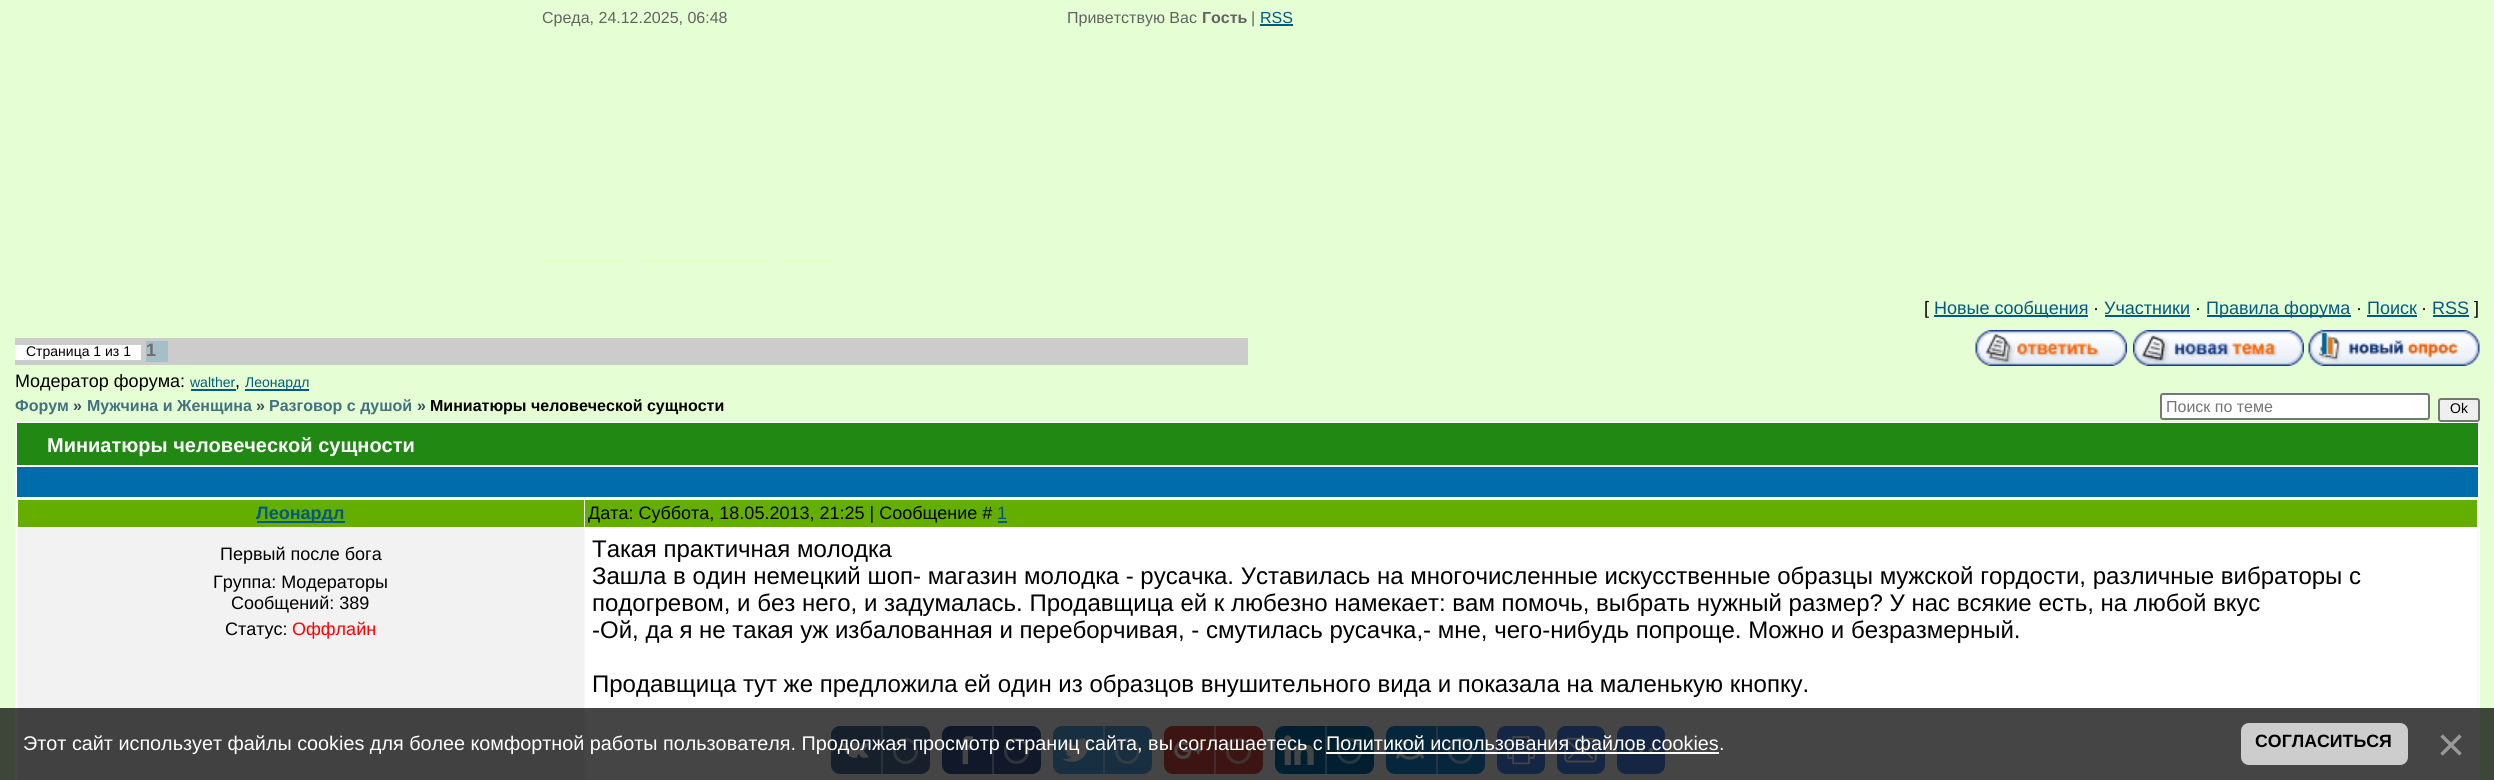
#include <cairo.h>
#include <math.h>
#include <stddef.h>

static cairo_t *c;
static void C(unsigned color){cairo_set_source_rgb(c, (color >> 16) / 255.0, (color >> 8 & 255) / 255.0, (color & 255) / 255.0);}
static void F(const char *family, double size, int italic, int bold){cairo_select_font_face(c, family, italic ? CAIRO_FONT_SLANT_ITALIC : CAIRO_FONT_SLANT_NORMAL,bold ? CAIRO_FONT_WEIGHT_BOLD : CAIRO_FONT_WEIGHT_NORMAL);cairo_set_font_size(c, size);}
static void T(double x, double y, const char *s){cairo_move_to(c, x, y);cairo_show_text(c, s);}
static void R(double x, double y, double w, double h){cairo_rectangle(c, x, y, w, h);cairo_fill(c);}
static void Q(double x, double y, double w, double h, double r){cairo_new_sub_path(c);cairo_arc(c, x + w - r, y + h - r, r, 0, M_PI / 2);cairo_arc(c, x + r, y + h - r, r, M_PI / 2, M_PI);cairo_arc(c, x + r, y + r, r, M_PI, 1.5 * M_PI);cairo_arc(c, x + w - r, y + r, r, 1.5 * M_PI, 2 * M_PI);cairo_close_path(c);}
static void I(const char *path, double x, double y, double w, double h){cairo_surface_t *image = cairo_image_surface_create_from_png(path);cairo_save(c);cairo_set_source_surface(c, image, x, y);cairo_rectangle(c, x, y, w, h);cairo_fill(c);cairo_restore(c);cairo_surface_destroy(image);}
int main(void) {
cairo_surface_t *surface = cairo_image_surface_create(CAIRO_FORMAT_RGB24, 2494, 780);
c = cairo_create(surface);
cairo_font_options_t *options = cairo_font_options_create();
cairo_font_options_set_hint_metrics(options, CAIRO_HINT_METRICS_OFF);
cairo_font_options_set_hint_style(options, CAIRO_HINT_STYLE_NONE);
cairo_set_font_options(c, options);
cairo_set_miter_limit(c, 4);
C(0xe6fed4);
cairo_paint(c);
F("Liberation Sans",16,0,0);
C(0x636363);
T(542,23,"Среда, 24.12.2025, 06:48");
T(1067,23,"Приветствую Вас");
F("Liberation Sans",16,0,1);
T(1202,23,"Гость");
F("Liberation Sans",16,0,0);
T(1251,23,"|");
C(0x005b7f);
T(1260,23,"RSS");
R(1260,24,33,2);
C(0xe4ffbd);
R(543,260,81,2);
R(641,260,126,2);
R(783,260,50,2);
F("Liberation Sans",18,0,0);
C(0x000000);
T(1924,314,"[");
C(0x005b7f);
R(1934,315,154,2);
T(1934,314,"Новые сообщения");
C(0x000000);
T(2093,314,"·");
C(0x005b7f);
T(2104,314,"Участники");
R(2105,315,85,2);
C(0x000000);
T(2195,314,"·");
C(0x005b7f);
R(2207,315,144,2);
T(2206,314,"Правила форума");
C(0x000000);
T(2356,314,"·");
C(0x005b7f);
T(2367,314,"Поиск");
R(2367,315,50,2);
C(0x000000);
T(2421,314,"·");
C(0x005b7f);
T(2432,314,"RSS");
R(2433,315,36,2);
C(0x000000);
T(2474,314,"]");
C(0xcccccc);
R(15,338,1233,27);
C(0xffffff);
R(15,345,126,15);
F("Liberation Sans",14,0,0);
C(0x000000);
T(26,356,"Страница 1 из 1");
C(0xa6bec6);
R(146,341,22,21);
F("Liberation Sans",18,0,1);
C(0x6e6e6e);
T(146,356,"1");
I("1.png",1975,330,152,36);
I("2.png",2133,330,171,36);
I("3.png",2308,330,172,36);
F("Liberation Sans",18,0,0);
C(0x000000);
T(15,387,"Модератор форума:");
F("Liberation Sans",14,0,0);
C(0x005b7f);
T(190,387,"walther");
F("Liberation Sans",18,0,0);
C(0x000000);
T(235,387,",");
C(0x005b7f);
R(191,389,45,2);
R(245,389,64,2);
F("Liberation Sans",14,0,0);
T(245,387,"Леонардл");
F("Liberation Sans",16,0,1);
C(0x427181);
T(15,411,"Форум");
C(0x2f515c);
T(73,411,"»");
C(0x427181);
T(87,411,"Мужчина и Женщина");
C(0x2f515c);
T(256,411,"»");
C(0x427181);
T(269,411,"Разговор с душой");
C(0x2f515c);
T(417,411,"»");
C(0x000000);
T(430,411,"Миниатюры человеческой сущности");
C(0xffffff);
Q(2161,394,268,25,2);
cairo_fill_preserve(c);
C(0x767676);
cairo_stroke(c);
F("Liberation Sans",16,0,0);
C(0x757575);
T(2166,412,"Поиск по теме");
C(0xefefef);
Q(2439,399,40,22,2);
cairo_fill_preserve(c);
C(0x767676);
cairo_stroke(c);
F("Liberation Sans",14,0,0);
C(0x000000);
T(2450,413,"Ok");
C(0xffffff);
R(15,422,2465,358);
C(0x218814);
R(17,423,2461,42);
F("Liberation Sans",20,0,1);
C(0xffffff);
T(47,452,"Миниатюры человеческой сущности");
C(0x016cac);
R(17,467,2461,30);
C(0xf8f9fa);
R(17,498,2461,282);
C(0x64ae00);
R(18,500,566,27);
C(0x005b7f);
R(257,521,88,2);
F("Liberation Sans",18,0,1);
T(256,519,"Леонардл");
C(0x64ae00);
R(585,500,1892,27);
F("Liberation Sans",18,0,0);
C(0x000000);
T(588,519,"Дата: Суббота, 18.05.2013, 21:25 | Сообщение #");
C(0x005b7f);
T(997,519,"1");
R(998,521,9,2);
C(0xf2f2f2);
R(18,528,566,252);
C(0x000000);
T(220,560,"Первый после бога");
T(213,588,"Группа: Модераторы");
T(231,609,"Сообщений: 389");
T(225,635,"Статус:");
C(0xff0000);
T(292,635,"Оффлайн");
C(0xffffff);
R(585,528,1892,252);
F("Liberation Sans",24,0,0);
C(0x000000);
T(592,557,"Такая практичная молодка");
T(592,584,"Зашла в один немецкий шоп- магазин молодка - русачка. Уставилась на многочисленные искусственные образцы мужской гордости, различные вибраторы с");
T(592,611,"подогревом, и без него, и задумалась. Продавщица ей к любезно намекает: вам помочь, выбрать нужный размер? У нас всякие есть, на любой вкус");
T(592,638,"-Ой, да я не такая уж избалованная и переборчивая, - смутилась русачка,- мне, чего-нибудь попроще. Можно и безразмерный.");
T(592,692,"Продавщица тут же предложила ей один из образцов внушительного вида и показала на маленькую кнопку.");
C(0x4d75a3);
Q(831,726,99,48,9);
cairo_fill(c);
I("4.png",841,742,28,16);
C(0xa6bad1);
R(881,726,2,48);
Q(894.5,739.5,22,23,11);
C(0xb8c8da);
cairo_set_line_width(c,3);
cairo_stroke(c);
C(0x3b5998);
Q(942,726,99,48,9);
cairo_fill(c);
I("5.png",959,736,15,29);
C(0x9daccc);
R(992,726,2,48);
Q(1005.5,739.5,22,23,11);
C(0xb1bdd6);
cairo_stroke(c);
C(0x55acee);
Q(1053,726,99,48,9);
cairo_fill(c);
I("6.png",1062,738,30,24);
C(0xaad6f7);
R(1103,726,2,48);
Q(1116.5,739.5,22,23,11);
C(0xbbdef8);
cairo_stroke(c);
C(0xdc4e41);
Q(1164,726,99,48,9);
cairo_fill(c);
I("7.png",1174,741,28,18);
C(0xeea7a0);
R(1214,726,2,48);
Q(1227.5,739.5,22,23,11);
C(0xf1b8b3);
cairo_stroke(c);
C(0x0077b5);
Q(1275,726,99,48,9);
cairo_fill(c);
I("8.png",1284,735,30,30);
C(0x80bbda);
R(1325,726,2,48);
Q(1338.5,739.5,22,23,11);
C(0x99c9e1);
cairo_stroke(c);
C(0x168de2);
Q(1386,726,99,48,9);
cairo_fill(c);
I("9.png",1396,740,28,20);
C(0x8bc6f1);
R(1436,726,2,48);
Q(1449.5,739.5,22,23,11);
C(0xa2d1f3);
cairo_stroke(c);
C(0x498bfa);
Q(1497,726,48,48,9);
cairo_fill(c);
I("10.png",1507,736,28,29);
Q(1557,726,48,48,9);
cairo_fill(c);
I("11.png",1564,737,33,26);
Q(1617,726,48,48,9);
cairo_fill(c);
I("12.png",1628,747,26,5);
cairo_set_source_rgba(c,0,0,0,0.73);
R(0,708,2494,72);
F("Liberation Sans",19.8,0,0);
C(0xffffff);
T(23,750,"Этот сайт использует файлы cookies для более комфортной работы пользователя. Продолжая просмотр страниц сайта, вы соглашаетесь с");
R(1326,752,393,2);
T(1326,750,"Политикой использования файлов cookies");
T(1719,750,".");
cairo_set_source_rgba(c,1,1,1,0.73);
Q(2241,723,167,42,8);
cairo_fill(c);
F("Liberation Sans",17.75,0,1);
C(0x000000);
T(2255,747,"СОГЛАСИТЬСЯ");
F("Liberation Sans",48,0,0);
C(0x999999);
T(2437,761,"×");
cairo_surface_write_to_png(surface, "o.png");
cairo_font_options_destroy(options);
cairo_destroy(c);
cairo_surface_destroy(surface);
return 0;
}
